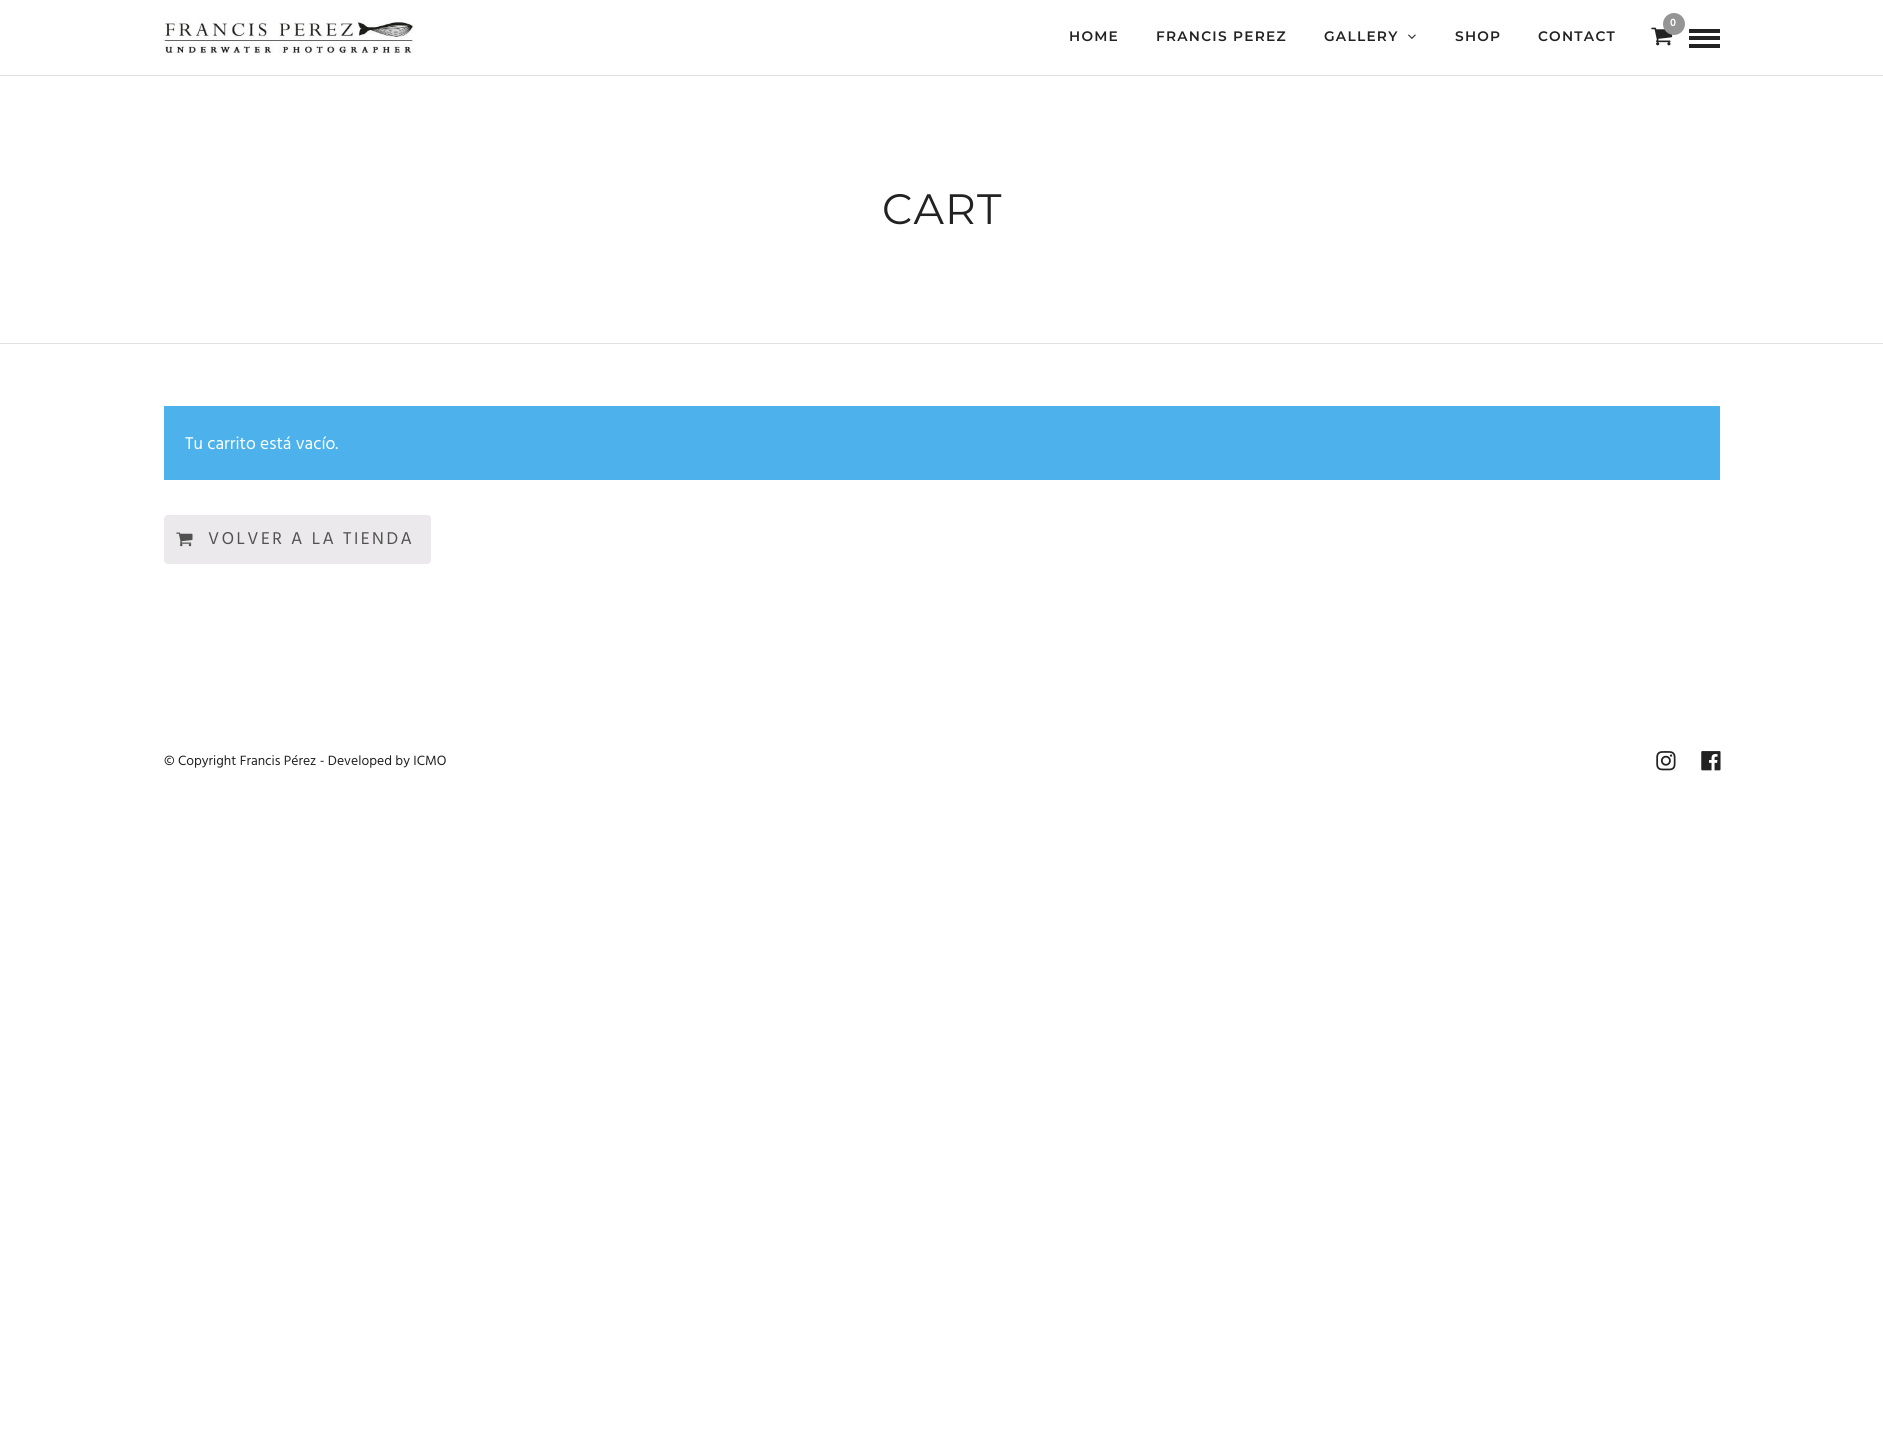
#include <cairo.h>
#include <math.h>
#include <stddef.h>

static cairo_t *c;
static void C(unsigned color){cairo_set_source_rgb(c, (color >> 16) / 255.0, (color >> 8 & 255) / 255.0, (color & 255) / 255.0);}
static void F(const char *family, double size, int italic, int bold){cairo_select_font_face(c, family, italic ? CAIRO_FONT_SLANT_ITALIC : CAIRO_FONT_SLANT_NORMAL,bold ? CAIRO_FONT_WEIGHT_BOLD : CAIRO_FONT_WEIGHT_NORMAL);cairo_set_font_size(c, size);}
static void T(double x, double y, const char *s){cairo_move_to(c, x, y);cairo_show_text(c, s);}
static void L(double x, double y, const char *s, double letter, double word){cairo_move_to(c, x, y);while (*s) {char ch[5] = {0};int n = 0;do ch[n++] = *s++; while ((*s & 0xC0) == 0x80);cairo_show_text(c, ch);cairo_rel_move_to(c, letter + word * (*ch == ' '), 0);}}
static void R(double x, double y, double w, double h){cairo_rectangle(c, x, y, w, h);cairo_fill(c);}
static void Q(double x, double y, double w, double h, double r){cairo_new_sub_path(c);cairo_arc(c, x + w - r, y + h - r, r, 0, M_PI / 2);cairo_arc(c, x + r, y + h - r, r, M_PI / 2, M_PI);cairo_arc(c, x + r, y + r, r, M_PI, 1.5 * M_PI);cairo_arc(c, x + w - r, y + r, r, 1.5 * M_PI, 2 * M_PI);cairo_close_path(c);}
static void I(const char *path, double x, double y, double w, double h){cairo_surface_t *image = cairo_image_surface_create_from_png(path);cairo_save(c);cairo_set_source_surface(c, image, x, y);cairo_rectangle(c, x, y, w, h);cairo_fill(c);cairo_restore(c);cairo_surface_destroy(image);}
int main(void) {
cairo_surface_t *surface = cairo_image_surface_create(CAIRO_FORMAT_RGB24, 1883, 1444);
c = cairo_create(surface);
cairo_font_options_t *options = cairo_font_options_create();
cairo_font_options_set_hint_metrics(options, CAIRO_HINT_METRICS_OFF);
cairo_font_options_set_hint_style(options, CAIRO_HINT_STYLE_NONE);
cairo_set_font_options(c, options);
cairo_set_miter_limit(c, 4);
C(0xffffff);
cairo_paint(c);
C(0xe1e1e1);
R(0,75,1883,1);
I("1.png",164,19,250,35);
I("2.png",1651,27,22,19);
C(0x959595);
cairo_arc(c,1674,24,11,0,2 * M_PI);
cairo_fill(c);
F("Hind SemiBold",11,0,0);
C(0xffffff);
T(1670,26,"0");
C(0x222222);
R(1689,29,31,4);
R(1689,36,31,4);
R(1689,44,31,4);
F("Montserrat SemiBold",13.75,0,0);
L(1069,41,"HOME",1.25,0);
L(1156,41,"FRANCIS PEREZ",1.25,0);
L(1324,41,"GALLERY",1.25,0);
I("3.png",1408,34,8,5);
L(1455,41,"SHOP",1.25,0);
L(1538,41,"CONTACT",1.25,0);
C(0xe1e1e1);
R(0,343,1883,1);
F("Montserrat Thin",42.5,0,0);
C(0x222222);
L(882,224,"CART",1.25,0);
C(0x4db2ec);
R(164,406,1556,74);
F("Hind",17.5,0,0);
C(0xffffff);
T(185,449,"Tu carrito está vacío.");
C(0xebe9eb);
Q(164,515,267,49,4);
cairo_fill(c);
I("4.png",176,532,17,15);
C(0x515151);
L(208,544,"VOLVER A LA TIENDA",2.5,0);
F("Hind",13.75,0,0);
C(0x222222);
T(164,765,"© Copyright Francis Pérez - Developed by ICMO");
I("5.png",1656,751,20,20);
I("6.png",1701,751,20,20);
cairo_surface_write_to_png(surface, "o.png");
cairo_font_options_destroy(options);
cairo_destroy(c);
cairo_surface_destroy(surface);
return 0;
}
